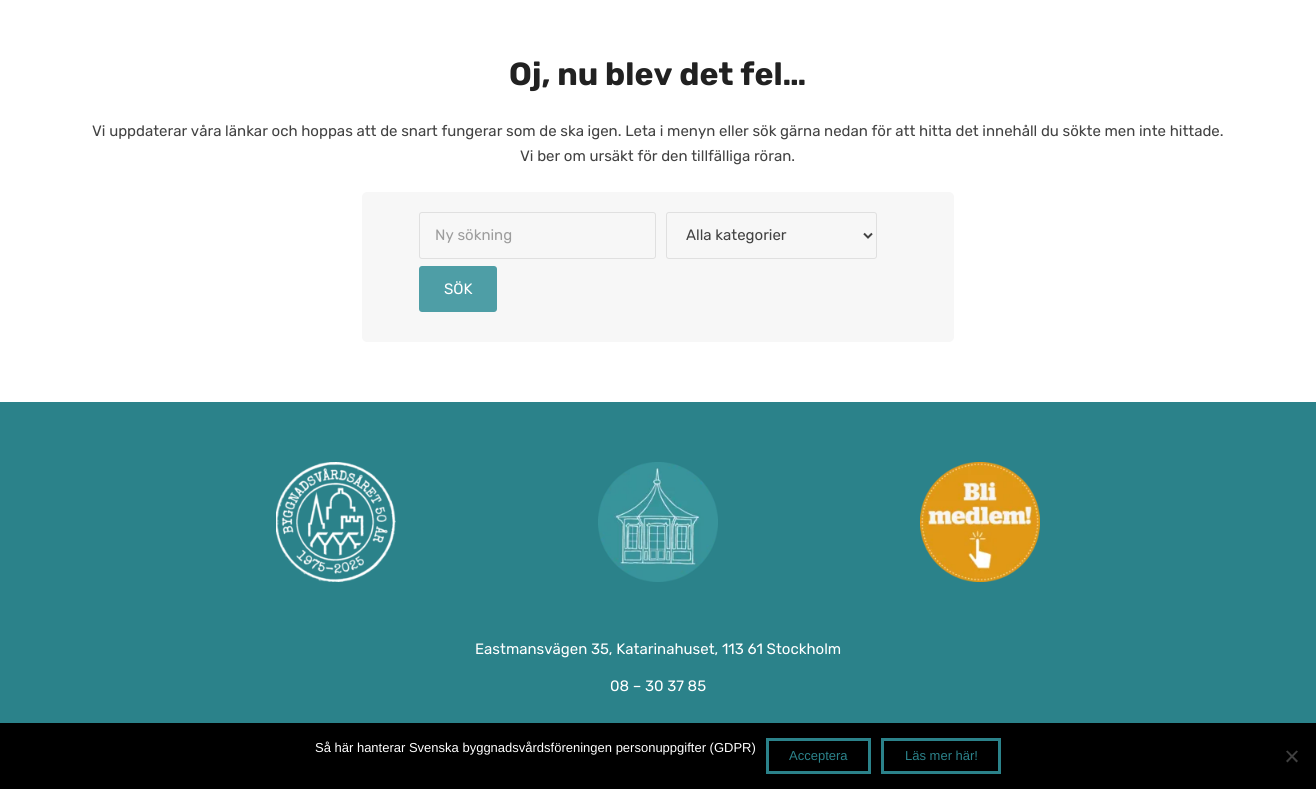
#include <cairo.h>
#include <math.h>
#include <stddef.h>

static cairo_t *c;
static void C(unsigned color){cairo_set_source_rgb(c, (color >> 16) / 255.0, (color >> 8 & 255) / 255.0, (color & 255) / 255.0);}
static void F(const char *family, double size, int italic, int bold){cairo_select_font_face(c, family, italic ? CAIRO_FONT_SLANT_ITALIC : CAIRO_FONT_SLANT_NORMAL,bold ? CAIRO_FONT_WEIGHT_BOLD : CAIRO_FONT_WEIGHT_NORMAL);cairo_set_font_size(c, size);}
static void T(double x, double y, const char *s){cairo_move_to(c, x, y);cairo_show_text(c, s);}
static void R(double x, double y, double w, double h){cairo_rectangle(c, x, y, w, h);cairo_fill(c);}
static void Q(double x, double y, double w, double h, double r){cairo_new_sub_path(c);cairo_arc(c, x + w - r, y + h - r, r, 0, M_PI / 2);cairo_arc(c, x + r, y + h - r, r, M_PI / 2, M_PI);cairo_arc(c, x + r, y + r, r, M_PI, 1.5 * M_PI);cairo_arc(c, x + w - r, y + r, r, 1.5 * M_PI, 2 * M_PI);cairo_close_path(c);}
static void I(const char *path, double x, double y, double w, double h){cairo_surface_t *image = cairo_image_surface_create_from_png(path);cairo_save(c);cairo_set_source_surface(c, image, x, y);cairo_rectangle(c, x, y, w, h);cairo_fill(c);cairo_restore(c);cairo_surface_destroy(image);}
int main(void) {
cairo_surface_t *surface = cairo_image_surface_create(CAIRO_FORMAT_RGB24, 1316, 789);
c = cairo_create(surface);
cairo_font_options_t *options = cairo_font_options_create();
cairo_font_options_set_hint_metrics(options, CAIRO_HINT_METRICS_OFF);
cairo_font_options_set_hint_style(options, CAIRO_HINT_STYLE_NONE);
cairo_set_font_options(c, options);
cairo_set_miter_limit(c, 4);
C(0xffffff);
cairo_paint(c);
F("Rubik",32,0,1);
C(0x212121);
T(509,85,"Oj, nu blev det fel…");
F("Rubik",15,0,0);
C(0x424242);
T(92,136,"Vi uppdaterar våra länkar och hoppas att de snart fungerar som de ska igen. Leta i menyn eller sök gärna nedan för att hitta det innehåll du sökte men inte hittade.");
T(520,161,"Vi ber om ursäkt för den tillfälliga röran.");
C(0xf7f7f7);
Q(362,192,592,150,5);
cairo_fill(c);
Q(419.5,212.5,236,46,2.5);
C(0xe0e0e0);
cairo_set_line_width(c,1);
cairo_stroke(c);
C(0x9d9d9d);
T(435,240,"Ny sökning");
Q(666.5,212.5,210,46,2.5);
C(0xe0e0e0);
cairo_stroke(c);
cairo_new_path(c);
cairo_move_to(c,864,233.5);
cairo_line_to(c,868,237.5);
cairo_line_to(c,872,233.5);
C(0x424242);
cairo_set_line_width(c,2);
cairo_stroke(c);
T(686,240,"Alla kategorier");
C(0x4e9ea6);
Q(419,266,78,46,3);
cairo_fill(c);
C(0xffffff);
T(444,294,"SÖK");
C(0x2b828a);
R(0,402,1316,321);
I("1.png",276,462,120,120);
I("2.png",598,462,120,120);
I("3.png",920,462,120,120);
C(0xffffff);
T(475,654,"Eastmansvägen 35, Katarinahuset, 113 61 Stockholm");
T(610,691,"08 – 30 37 85");
C(0x000000);
R(0,723,1316,66);
F("Liberation Sans",13,0,0);
C(0xffffff);
T(315,752,"Så här hanterar Svenska byggnadsvårdsföreningen personuppgifter (GDPR)");
cairo_rectangle(c,767.5,739.5,102,33);
C(0x2b828a);
cairo_set_line_width(c,3);
cairo_stroke(c);
T(789,760,"Acceptera");
cairo_rectangle(c,882.5,739.5,117,33);
cairo_stroke(c);
T(905,760,"Läs mer här!");
C(0x404040);
cairo_new_path(c);
cairo_move_to(c,1296.5,750.5);
cairo_line_to(c,1298,751.5);
cairo_line_to(c,1287.5,762.5);
cairo_line_to(c,1286,761);
cairo_close_path(c);
cairo_fill(c);
cairo_new_path(c);
cairo_move_to(c,1286,751.5);
cairo_line_to(c,1287.5,750.5);
cairo_line_to(c,1298,761);
cairo_line_to(c,1296.5,762.5);
cairo_close_path(c);
cairo_fill(c);
cairo_surface_write_to_png(surface, "o.png");
cairo_font_options_destroy(options);
cairo_destroy(c);
cairo_surface_destroy(surface);
return 0;
}
